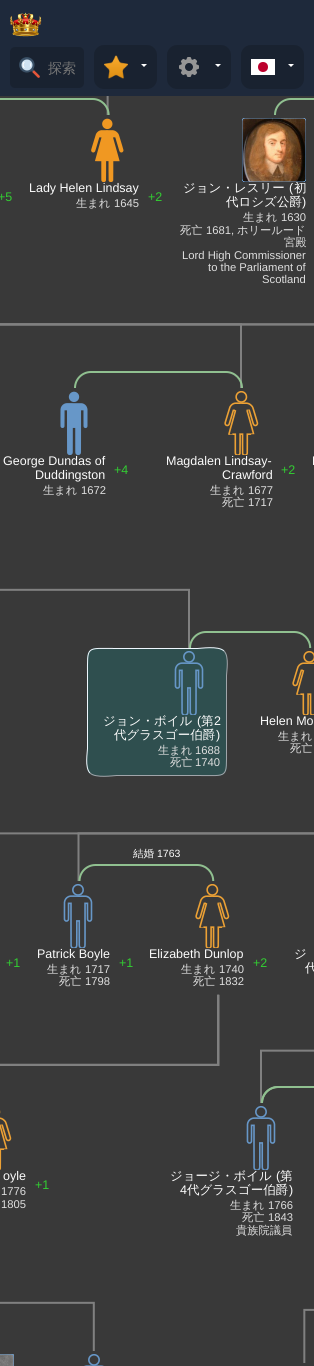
#include <cairo.h>
#include <math.h>
#include <stddef.h>

static cairo_t *c;
static void C(unsigned color){cairo_set_source_rgb(c, (color >> 16) / 255.0, (color >> 8 & 255) / 255.0, (color & 255) / 255.0);}
static void F(const char *family, double size, int italic, int bold){cairo_select_font_face(c, family, italic ? CAIRO_FONT_SLANT_ITALIC : CAIRO_FONT_SLANT_NORMAL,bold ? CAIRO_FONT_WEIGHT_BOLD : CAIRO_FONT_WEIGHT_NORMAL);cairo_set_font_size(c, size);}
static void T(double x, double y, const char *s){cairo_move_to(c, x, y);cairo_show_text(c, s);}
static void R(double x, double y, double w, double h){cairo_rectangle(c, x, y, w, h);cairo_fill(c);}
static void Q(double x, double y, double w, double h, double r){cairo_new_sub_path(c);cairo_arc(c, x + w - r, y + h - r, r, 0, M_PI / 2);cairo_arc(c, x + r, y + h - r, r, M_PI / 2, M_PI);cairo_arc(c, x + r, y + r, r, M_PI, 1.5 * M_PI);cairo_arc(c, x + w - r, y + r, r, 1.5 * M_PI, 2 * M_PI);cairo_close_path(c);}
static void I(const char *path, double x, double y, double w, double h){cairo_surface_t *image = cairo_image_surface_create_from_png(path);cairo_save(c);cairo_set_source_surface(c, image, x, y);cairo_rectangle(c, x, y, w, h);cairo_fill(c);cairo_restore(c);cairo_surface_destroy(image);}
int main(void) {
cairo_surface_t *surface = cairo_image_surface_create(CAIRO_FORMAT_RGB24, 314, 1366);
c = cairo_create(surface);
cairo_font_options_t *options = cairo_font_options_create();
cairo_font_options_set_hint_metrics(options, CAIRO_HINT_METRICS_OFF);
cairo_font_options_set_hint_style(options, CAIRO_HINT_STYLE_NONE);
cairo_set_font_options(c, options);
cairo_set_miter_limit(c, 4);
C(0x393939);
cairo_paint(c);
C(0x1e293b);
R(0,0,314,96);
I("1.png",10,12,32,25);
C(0x192230);
Q(10,47,74,41,5);
cairo_fill(c);
I("2.png",19,57,21,21);
F("WenQuanYi Zen Hei Medium",14,0,0);
C(0x757575);
T(48,73,"探索");
C(0x192230);
Q(94,45,63,44,10);
cairo_fill(c);
I("3.png",104,55,24,24);
C(0xffffff);
cairo_new_path(c);
cairo_move_to(c,141,64);
cairo_line_to(c,147,64);
cairo_line_to(c,144,67);
cairo_close_path(c);
cairo_fill(c);
C(0x192230);
Q(167,45,64,44,10);
cairo_fill(c);
I("4.png",179,57,20,20);
C(0xffffff);
cairo_new_path(c);
cairo_move_to(c,215,64);
cairo_line_to(c,221,64);
cairo_line_to(c,218,67);
cairo_close_path(c);
cairo_fill(c);
C(0x192230);
Q(241,45,63,44,10);
cairo_fill(c);
C(0xffffff);
R(251,59,24,16);
C(0xbc002d);
cairo_arc(c,263,67,5,0,2 * M_PI);
cairo_fill(c);
C(0xffffff);
cairo_new_path(c);
cairo_move_to(c,288,64);
cairo_line_to(c,294,64);
cairo_line_to(c,291,67);
cairo_close_path(c);
cairo_fill(c);
I("5.png",91,118,33,64);
F("Liberation Sans",12.5,0,0);
C(0xfcfcfc);
T(29,192,"Lady Helen Lindsay");
F("WenQuanYi Zen Hei Medium",11.25,0,0);
C(0xdedede);
T(76,207,"生まれ");
F("Liberation Sans",11.25,0,0);
T(114,207,"1645");
F("Liberation Sans",12.5,0,0);
C(0xfcfcfc);
T(289,192,"(");
F("WenQuanYi Zen Hei Medium",12.5,0,0);
T(294,192,"初");
I("6.png",242,118,64,64);
T(183,192,"ジョン・レスリー");
T(226,206,"代ロシズ公爵");
F("Liberation Sans",12.5,0,0);
T(302,206,")");
F("WenQuanYi Zen Hei Medium",11.25,0,0);
C(0xdedede);
T(243,221,"生まれ");
F("Liberation Sans",11.25,0,0);
T(281,221,"1630");
F("WenQuanYi Zen Hei Medium",11.25,0,0);
T(180,234,"死亡");
F("Liberation Sans",11.25,0,0);
T(206,234,"1681,");
F("WenQuanYi Zen Hei Medium",11.25,0,0);
T(237,234,"ホリールード");
T(284,246,"宮殿");
F("Liberation Sans",11.25,0,0);
T(182,259,"Lord High Commissioner");
T(208,271,"to the Parliament of");
T(262,283,"Scotland");
I("7.png",60,391,28,64);
F("Liberation Sans",12.5,0,0);
C(0xfcfcfc);
T(3,465,"George Dundas of");
T(35,479,"Duddingston");
F("WenQuanYi Zen Hei Medium",11.25,0,0);
C(0xdedede);
T(43,494,"生まれ");
F("Liberation Sans",11.25,0,0);
T(81,494,"1672");
I("8.png",224,391,35,64);
F("Liberation Sans",12.5,0,0);
C(0xfcfcfc);
T(166,465,"Magdalen Lindsay-");
T(222,479,"Crawford");
F("WenQuanYi Zen Hei Medium",11.25,0,0);
C(0xdedede);
T(210,494,"生まれ");
F("Liberation Sans",11.25,0,0);
T(248,494,"1677");
F("WenQuanYi Zen Hei Medium",11.25,0,0);
T(222,506,"死亡");
F("Liberation Sans",11.25,0,0);
T(248,506,"1717");
F("Liberation Sans",12.5,0,0);
C(0xfcfcfc);
T(312,465,"L");
C(0x2f4f4f);
Q(87,648,140,128,9);
cairo_fill(c);
cairo_new_path(c);
cairo_move_to(c,224,651);
cairo_curve_to(c,229.5,656.5,226.5,672,226.5,675.5);
cairo_line_to(c,226.5,748.5);
cairo_curve_to(c,226.5,779,228.5,775.5,197.5,775.5);
cairo_line_to(c,116.5,775.5);
cairo_curve_to(c,114,775.5,95.5,778.5,90,773);
C(0xa0a5aa);
cairo_set_line_width(c,1);
cairo_stroke(c);
cairo_new_path(c);
cairo_move_to(c,90,773);
cairo_curve_to(c,84.5,767.5,87.5,752,87.5,748.5);
cairo_line_to(c,87.5,675.5);
cairo_curve_to(c,87.5,645,85.5,648.5,116.5,648.5);
cairo_line_to(c,197.5,648.5);
cairo_curve_to(c,200,648.5,218.5,645.5,224,651);
C(0xf0f8ff);
cairo_stroke(c);
F("WenQuanYi Zen Hei Medium",12.5,0,0);
C(0xfcfcfc);
T(201,725,"第");
I("9.png",174,651,30,64);
T(103,725,"ジョン・ボイル");
F("Liberation Sans",12.5,0,0);
T(197,725,"(");
T(214,725,"2");
F("WenQuanYi Zen Hei Medium",12.5,0,0);
T(114,739,"代グラスゴー伯爵");
F("Liberation Sans",12.5,0,0);
T(216,739,")");
F("WenQuanYi Zen Hei Medium",11.25,0,0);
C(0xdedede);
T(158,754,"生まれ");
F("Liberation Sans",11.25,0,0);
T(195,754,"1688");
F("WenQuanYi Zen Hei Medium",11.25,0,0);
T(170,766,"死亡");
F("Liberation Sans",11.25,0,0);
T(195,766,"1740");
I("10.png",292,651,22,64);
F("Liberation Sans",12.5,0,0);
C(0xfcfcfc);
T(260,725,"Helen Mo");
F("WenQuanYi Zen Hei Medium",11.25,0,0);
C(0xdedede);
T(278,740,"生まれ");
T(290,752,"死亡");
I("11.png",63,884,30,64);
F("Liberation Sans",12.5,0,0);
C(0xfcfcfc);
T(37,958,"Patrick Boyle");
F("WenQuanYi Zen Hei Medium",11.25,0,0);
C(0xdedede);
T(47,973,"生まれ");
F("Liberation Sans",11.25,0,0);
T(85,973,"1717");
F("WenQuanYi Zen Hei Medium",11.25,0,0);
T(59,985,"死亡");
F("Liberation Sans",11.25,0,0);
T(85,985,"1798");
I("8.png",195,884,35,64);
F("Liberation Sans",12.5,0,0);
C(0xfcfcfc);
T(149,958,"Elizabeth Dunlop");
F("WenQuanYi Zen Hei Medium",11.25,0,0);
C(0xdedede);
T(181,973,"生まれ");
F("Liberation Sans",11.25,0,0);
T(219,973,"1740");
F("WenQuanYi Zen Hei Medium",11.25,0,0);
T(193,985,"死亡");
F("Liberation Sans",11.25,0,0);
T(219,985,"1832");
F("WenQuanYi Zen Hei Medium",12.5,0,0);
C(0xfcfcfc);
T(294,958,"ジ");
T(305,972,"代");
I("12.png",0,1110,12,60);
F("Liberation Sans",12.5,0,0);
T(3,1180,"oyle");
F("Liberation Sans",11.25,0,0);
C(0xdedede);
T(1,1195,"1776");
T(1,1208,"1805");
I("13.png",0,1354,14,12);
I("14.png",84,1354,20,12);
I("11.png",246,1106,30,64);
F("WenQuanYi Zen Hei Medium",12.5,0,0);
C(0xfcfcfc);
T(170,1180,"ジョージ・ボイル");
F("Liberation Sans",12.5,0,0);
T(276,1180,"(");
F("WenQuanYi Zen Hei Medium",12.5,0,0);
T(280,1180,"第");
F("Liberation Sans",12.5,0,0);
T(180,1194,"4");
F("WenQuanYi Zen Hei Medium",12.5,0,0);
T(187,1194,"代グラスゴー伯爵");
F("Liberation Sans",12.5,0,0);
T(289,1194,")");
F("WenQuanYi Zen Hei Medium",11.25,0,0);
C(0xdedede);
T(230,1209,"生まれ");
F("Liberation Sans",11.25,0,0);
T(268,1209,"1766");
F("WenQuanYi Zen Hei Medium",11.25,0,0);
T(242,1221,"死亡");
F("Liberation Sans",11.25,0,0);
T(268,1221,"1843");
F("WenQuanYi Zen Hei Medium",11.25,0,0);
T(236,1234,"貴族院議員");
I("15.png",0,96,314,1267);
F("Liberation Sans",12.5,0,0);
C(0x32cd32);
T(-2,201,"+5");
T(148,201,"+2");
T(114,474,"+4");
T(281,474,"+2");
T(6,967,"+1");
T(119,967,"+1");
T(253,967,"+2");
T(35,1189,"+1");
F("WenQuanYi Zen Hei Medium",10.5,0,0);
C(0xfcfcfc);
T(133,857,"結婚");
F("Liberation Sans",10.5,0,0);
T(157,857,"1763");
cairo_surface_write_to_png(surface, "o.png");
cairo_font_options_destroy(options);
cairo_destroy(c);
cairo_surface_destroy(surface);
return 0;
}
